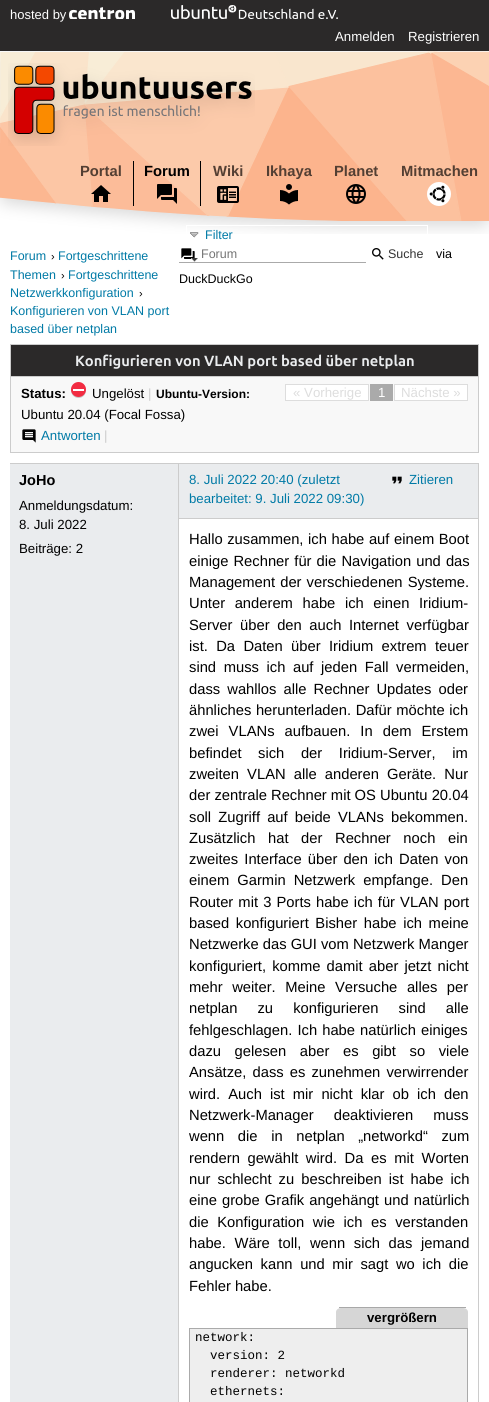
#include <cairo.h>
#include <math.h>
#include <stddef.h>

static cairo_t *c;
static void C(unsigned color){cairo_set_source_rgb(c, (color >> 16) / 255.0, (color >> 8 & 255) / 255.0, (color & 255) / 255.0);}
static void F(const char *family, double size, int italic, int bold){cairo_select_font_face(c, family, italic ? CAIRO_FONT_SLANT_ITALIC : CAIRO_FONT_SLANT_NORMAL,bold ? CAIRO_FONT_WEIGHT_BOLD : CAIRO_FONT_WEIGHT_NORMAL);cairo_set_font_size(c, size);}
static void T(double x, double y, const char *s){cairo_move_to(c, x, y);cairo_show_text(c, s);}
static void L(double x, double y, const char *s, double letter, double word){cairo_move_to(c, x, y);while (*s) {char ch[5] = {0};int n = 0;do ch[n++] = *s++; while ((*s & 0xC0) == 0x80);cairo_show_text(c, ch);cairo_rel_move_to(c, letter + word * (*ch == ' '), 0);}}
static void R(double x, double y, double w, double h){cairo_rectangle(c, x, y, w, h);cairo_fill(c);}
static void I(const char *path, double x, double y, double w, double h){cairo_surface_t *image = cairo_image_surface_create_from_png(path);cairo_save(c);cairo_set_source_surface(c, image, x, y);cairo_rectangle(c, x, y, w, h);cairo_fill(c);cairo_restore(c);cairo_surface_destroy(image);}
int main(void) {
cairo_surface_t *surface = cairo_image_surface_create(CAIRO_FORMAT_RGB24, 489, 1402);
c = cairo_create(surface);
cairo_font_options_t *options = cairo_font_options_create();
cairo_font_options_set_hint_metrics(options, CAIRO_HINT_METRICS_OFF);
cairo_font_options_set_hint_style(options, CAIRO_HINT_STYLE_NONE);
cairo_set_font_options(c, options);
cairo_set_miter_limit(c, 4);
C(0xffffff);
cairo_paint(c);
C(0x2b2929);
R(0,0,489,51);
F("Liberation Sans",13,0,0);
C(0xffffff);
T(10,19,"hosted by");
I("1.png",69,7,66,12);
I("2.png",171,5,167,14);
F("Liberation Sans",13.25,0,0);
T(335,41,"Anmelden");
T(408,41,"Registrieren");
I("3.png",0,51,489,183);
I("4.png",8,63,247,83);
F("Liberation Sans",14.75,0,1);
C(0x533f33);
T(80,176,"Portal");
I("5.png",91,185,20,17);
C(0x000000);
R(200,161,1,45);
R(133,161,1,45);
T(144,176,"Forum");
I("6.png",157,184,20,20);
C(0x533f33);
T(213,176,"Wiki");
I("7.png",217,186,22,17);
T(266,176,"Ikhaya");
I("8.png",280,184,18,21);
T(334,176,"Planet");
I("9.png",346,184,20,20);
T(401,176,"Mitmachen");
I("10.png",427,182,24,24);
cairo_rectangle(c,186.5,225.5,241,22);
C(0xffffff);
cairo_set_line_width(c,1);
cairo_stroke(c);
I("11.png",190,232,9,6);
F("Liberation Sans",12.5,0,0);
C(0x007aa6);
T(205,239,"Filter");
T(10,260,"Forum");
F("Liberation Sans",11,0,0);
C(0x000000);
T(51,260,"›");
F("Liberation Sans",12.5,0,0);
C(0x007aa6);
T(58,260,"Fortgeschrittene");
T(10,279,"Themen");
F("Liberation Sans",11,0,0);
C(0x000000);
T(61,279,"›");
F("Liberation Sans",12.5,0,0);
C(0x007aa6);
T(68,279,"Fortgeschrittene");
T(10,297,"Netzwerkkonfiguration");
F("Liberation Sans",11,0,0);
C(0x000000);
T(139,297,"›");
F("Liberation Sans",12.5,0,0);
C(0x007aa6);
T(10,315,"Konfigurieren von VLAN port");
T(10,333,"based über netplan");
I("12.png",181,248,14,11);
C(0xaaaaaa);
R(179,262,187,1);
C(0x757575);
T(201,258,"Forum");
I("13.png",372,248,12,12);
C(0x333333);
T(388,258,"Suche");
C(0x000000);
T(436,258,"via");
I("14.png",191,258,7,4);
T(179,283,"DuckDuckGo");
C(0xf8f8f8);
R(11,377,467,75);
cairo_rectangle(c,10.5,344.5,468,108);
C(0xcccccc);
cairo_stroke(c);
C(0x2b2929);
R(11,345,467,31);
C(0xcccccc);
R(11,376,467,1);
F("Ubuntu",14.75,0,1);
C(0xeaecee);
T(75,366,"Konfigurieren von VLAN port based über netplan");
F("Liberation Sans",13.25,0,1);
C(0x000000);
T(21,398,"Status:");
I("15.png",71,382,15,16);
F("Liberation Sans",13.25,0,0);
T(92,398,"Ungelöst");
C(0xcccccc);
T(148,398,"|");
F("Liberation Sans",12,0,1);
C(0x000000);
T(156,398,"Ubuntu-Version:");
C(0xffffff);
cairo_rectangle(c,285.5,384.5,83,16);
cairo_fill_preserve(c);
C(0xdddddd);
cairo_stroke(c);
F("Liberation Sans",13.25,0,0);
T(293,397,"« Vorherige");
C(0xaaaaaa);
R(370,384,23,17);
C(0xffffff);
T(378,397,"1");
cairo_rectangle(c,394.5,384.5,73,16);
cairo_fill_preserve(c);
C(0xdddddd);
cairo_stroke(c);
T(401,397,"Nächste »");
C(0x000000);
T(21,419,"Ubuntu 20.04 (Focal Fossa)");
I("16.png",22,429,14,14);
C(0x007aa6);
T(41,440,"Antworten");
C(0xcccccc);
T(104,440,"|");
R(10,463,469,1);
R(478,463,1,939);
R(178,463,1,939);
C(0xeaecee);
R(10,464,168,938);
F("Liberation Sans",14.5,0,1);
C(0x000000);
T(19,485,"JoHo");
F("Liberation Sans",13.25,0,0);
T(19,510,"Anmeldungsdatum:");
T(19,529,"8. Juli 2022");
T(19,553,"Beiträge: 2");
C(0xeaecee);
R(179,464,299,54);
C(0xcccccc);
R(179,518,299,1);
C(0x007aa6);
T(189,484,"8. Juli 2022 20:40 (zuletzt");
I("17.png",392,476,10,8);
T(409,484,"Zitieren");
T(189,503,"bearbeitet: 9. Juli 2022 09:30)");
F("Liberation Sans",14.75,0,0);
C(0x000000);
L(189,544,"Hallo zusammen, ich habe auf einem Boot",0,.5);
L(189,566,"einige Rechner für die Navigation und das",0,1);
L(189,587,"Management der verschiedenen Systeme.",0,1);
L(189,608,"Unter anderem habe ich einen Iridium-",0,5.5);
L(189,630,"Server über den auch Internet verfügbar",0,3.5);
L(189,651,"ist. Da Daten über Iridium extrem teuer",0,4.25);
L(189,672,"sind muss ich auf jeden Fall vermeiden,",0,3.5);
L(189,694,"dass wahllos alle Rechner Updates oder",0,3);
L(189,715,"ähnliches herunterladen. Dafür möchte ich",0,.5);
L(189,736,"zwei VLANs aufbauen. In dem Erstem",0,6);
L(189,758,"befindet sich der Iridium-Server, im",0,12.5);
L(189,779,"zweiten VLAN alle anderen Geräte. Nur",0,4);
T(189,800,"der zentrale Rechner mit OS Ubuntu 20.04");
L(189,822,"soll Zugriff auf beide VLANs bekommen.",0,3);
L(189,843,"Zusätzlich hat der Rechner noch ein",0,8.5);
L(189,864,"zweites Interface über den ich Daten von",0,2);
L(189,885,"einem Garmin Netzwerk empfange. Den",0,4);
L(189,907,"Router mit 3 Ports habe ich für VLAN port",0,1);
L(189,928,"based konfiguriert Bisher habe ich meine",0,2.5);
T(189,949,"Netzwerke das GUI vom Netzwerk Manger");
L(189,971,"konfiguriert, komme damit aber jetzt nicht",0,2);
L(189,992,"mehr weiter. Meine Versuche alles per",0,5.5);
L(189,1013,"netplan zu konfigurieren sind alle",0,16);
L(189,1035,"fehlgeschlagen. Ich habe natürlich einiges",0,1);
L(189,1056,"dazu gelesen aber es gibt so viele",0,9.5);
L(189,1077,"Ansätze, dass es zunehmen verwirrender",0,2);
L(189,1099,"wird. Auch ist mir nicht klar ob ich den",0,4);
L(189,1120,"Netzwerk-Manager deaktivieren muss",0,16);
L(189,1141,"wenn die in netplan „networkd“ zum",0,9.5);
L(189,1163,"rendern gewählt wird. Da es mit Worten",0,3.5);
L(189,1184,"nur schlecht zu beschreiben ist habe ich",0,3);
L(189,1205,"eine grobe Grafik angehängt und natürlich",0,1);
L(189,1227,"die Konfiguration wie ich es verstanden",0,4.5);
L(189,1248,"habe. Wäre toll, wenn sich das jemand",0,4.5);
L(189,1269,"angucken kann und mir sagt wo ich die",0,3.5);
T(189,1291,"Fehler habe.");
C(0xd6d6d6);
cairo_new_path(c);
cairo_move_to(c,341,1308);
cairo_line_to(c,463,1308);
cairo_curve_to(c,466,1308,468,1310,468,1312);
cairo_line_to(c,468,1328);
cairo_line_to(c,336,1328);
cairo_line_to(c,336,1312);
cairo_curve_to(c,336,1310,338,1308,341,1308);
cairo_close_path(c);
cairo_fill(c);
C(0xa8a8a8);
R(339,1307,127,1);
F("Liberation Sans",13.25,0,1);
C(0x000000);
T(367,1322,"vergrößern");
C(0xeeeeee);
cairo_rectangle(c,189.5,1328.5,278,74);
cairo_fill_preserve(c);
C(0xaaaaaa);
cairo_stroke(c);
F("Liberation Mono",12.5,0,0);
C(0x000000);
T(195,1341,"network:");
T(210,1359,"version: 2");
T(210,1377,"renderer: networkd");
T(210,1395,"ethernets:");
cairo_surface_write_to_png(surface, "o.png");
cairo_font_options_destroy(options);
cairo_destroy(c);
cairo_surface_destroy(surface);
return 0;
}
